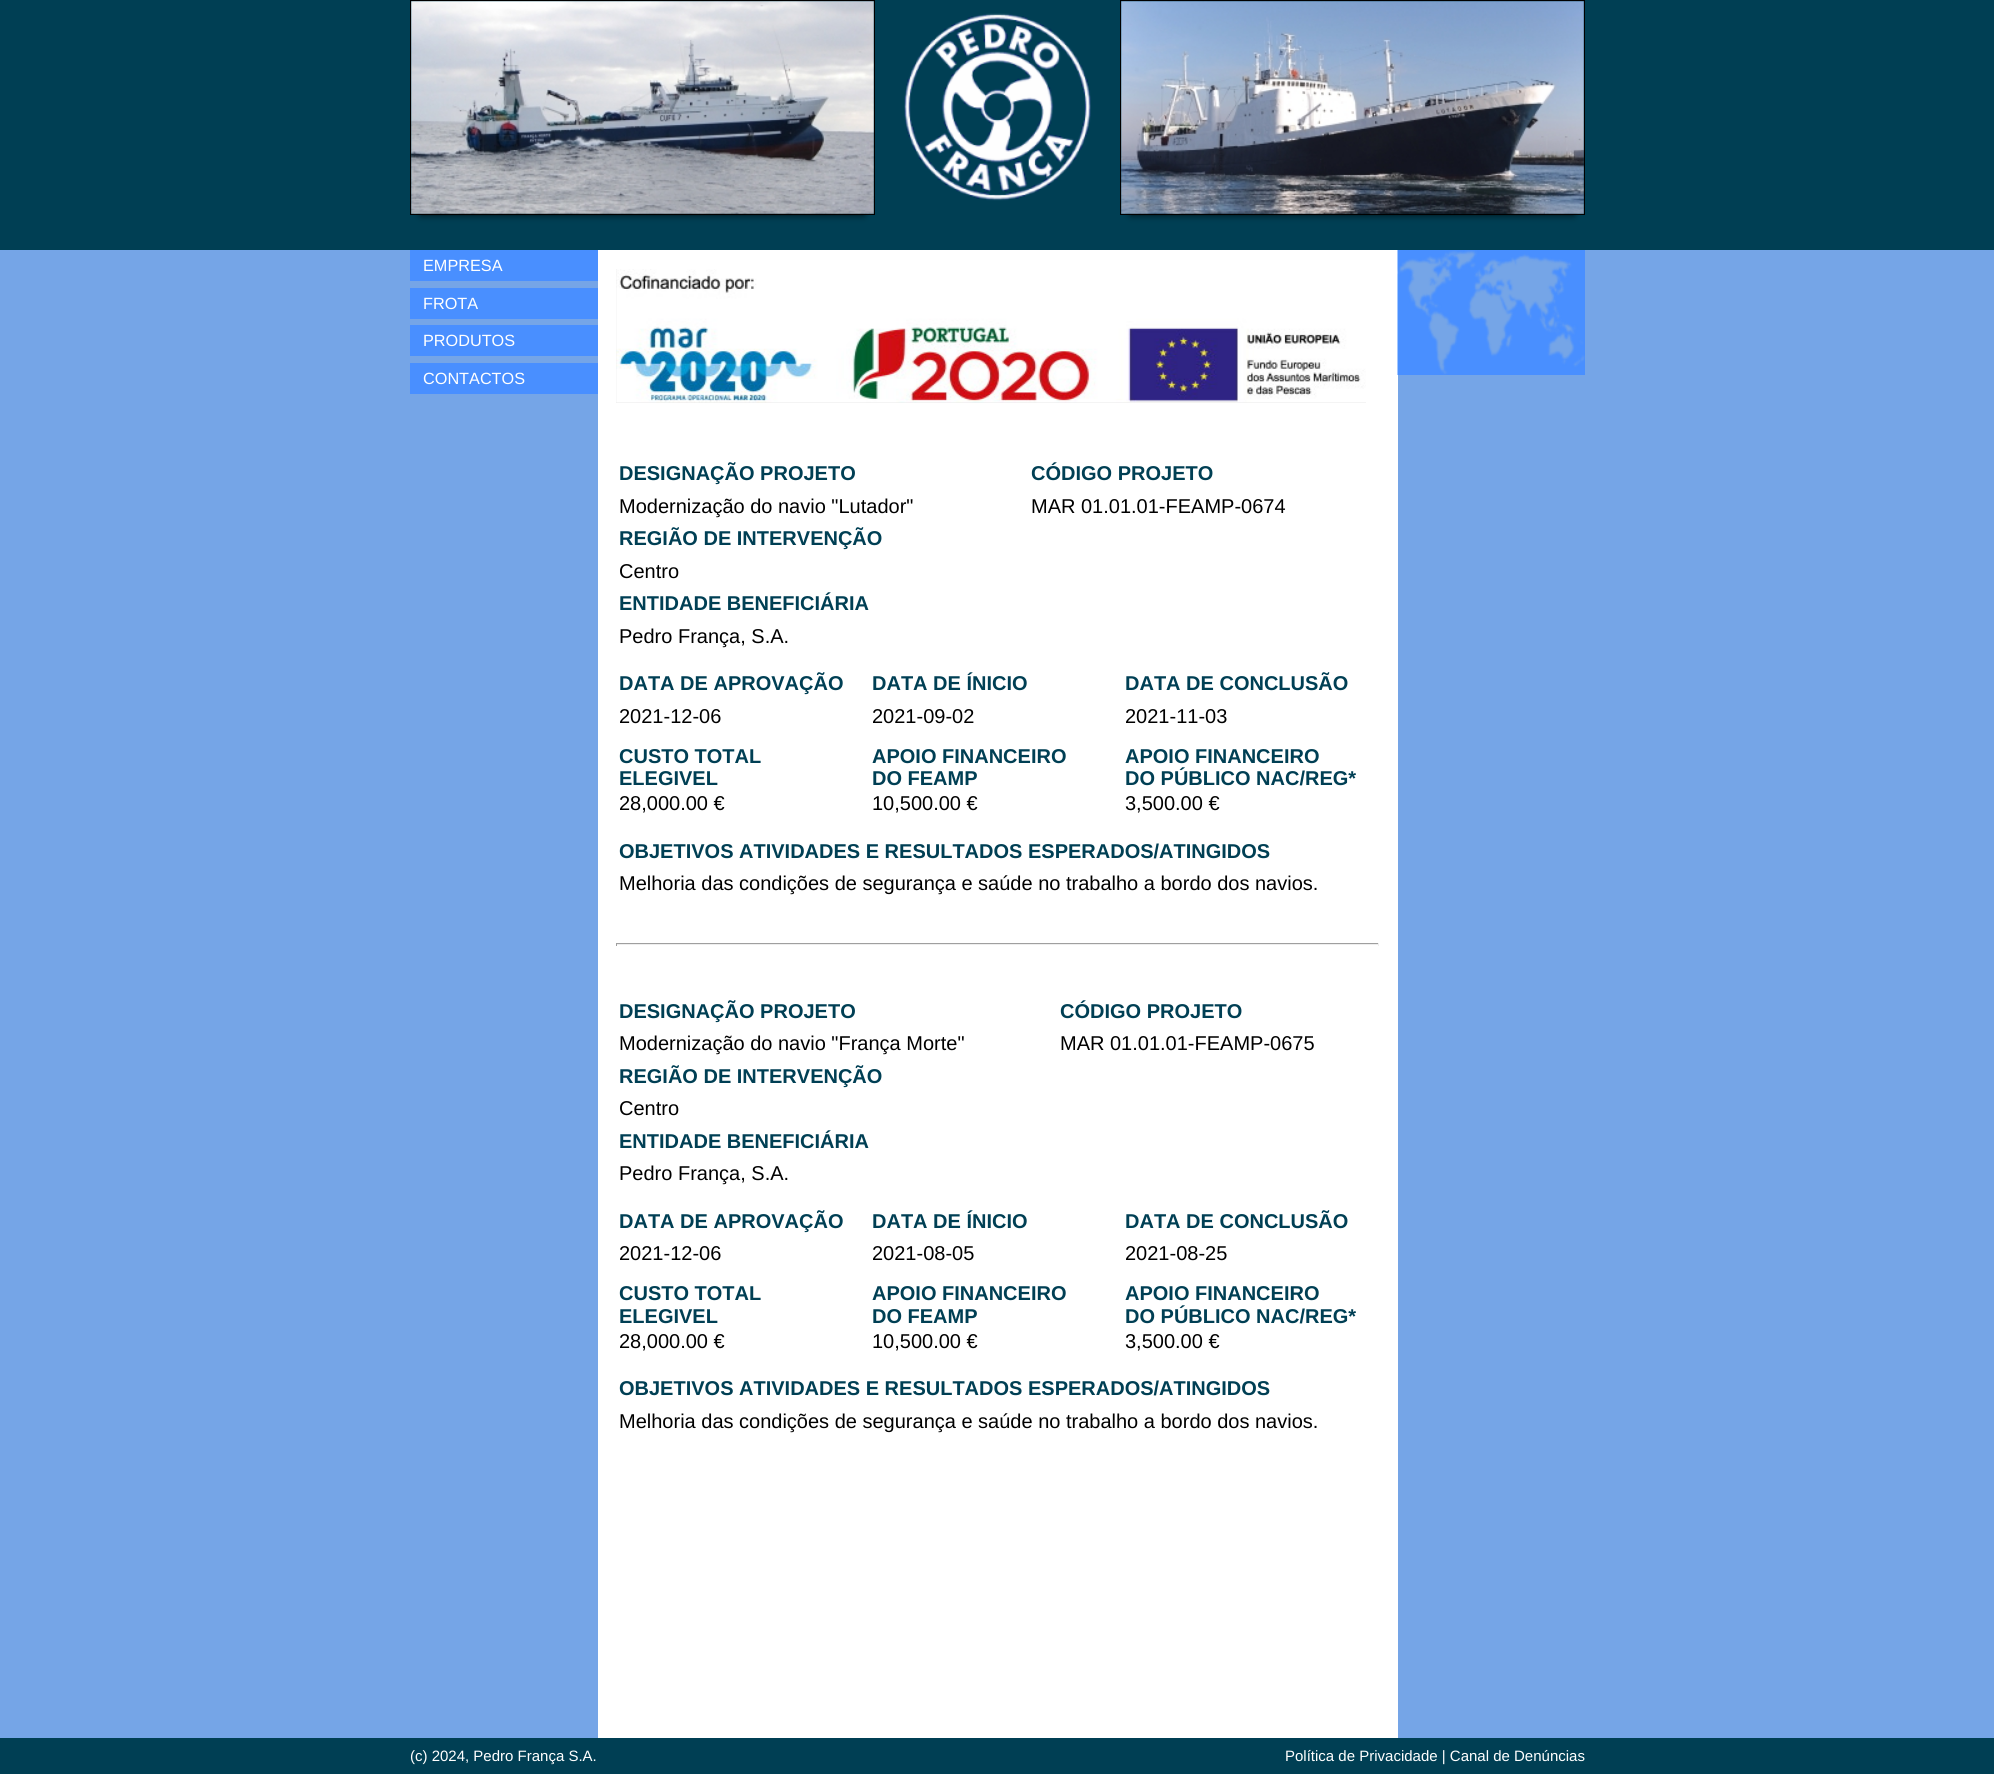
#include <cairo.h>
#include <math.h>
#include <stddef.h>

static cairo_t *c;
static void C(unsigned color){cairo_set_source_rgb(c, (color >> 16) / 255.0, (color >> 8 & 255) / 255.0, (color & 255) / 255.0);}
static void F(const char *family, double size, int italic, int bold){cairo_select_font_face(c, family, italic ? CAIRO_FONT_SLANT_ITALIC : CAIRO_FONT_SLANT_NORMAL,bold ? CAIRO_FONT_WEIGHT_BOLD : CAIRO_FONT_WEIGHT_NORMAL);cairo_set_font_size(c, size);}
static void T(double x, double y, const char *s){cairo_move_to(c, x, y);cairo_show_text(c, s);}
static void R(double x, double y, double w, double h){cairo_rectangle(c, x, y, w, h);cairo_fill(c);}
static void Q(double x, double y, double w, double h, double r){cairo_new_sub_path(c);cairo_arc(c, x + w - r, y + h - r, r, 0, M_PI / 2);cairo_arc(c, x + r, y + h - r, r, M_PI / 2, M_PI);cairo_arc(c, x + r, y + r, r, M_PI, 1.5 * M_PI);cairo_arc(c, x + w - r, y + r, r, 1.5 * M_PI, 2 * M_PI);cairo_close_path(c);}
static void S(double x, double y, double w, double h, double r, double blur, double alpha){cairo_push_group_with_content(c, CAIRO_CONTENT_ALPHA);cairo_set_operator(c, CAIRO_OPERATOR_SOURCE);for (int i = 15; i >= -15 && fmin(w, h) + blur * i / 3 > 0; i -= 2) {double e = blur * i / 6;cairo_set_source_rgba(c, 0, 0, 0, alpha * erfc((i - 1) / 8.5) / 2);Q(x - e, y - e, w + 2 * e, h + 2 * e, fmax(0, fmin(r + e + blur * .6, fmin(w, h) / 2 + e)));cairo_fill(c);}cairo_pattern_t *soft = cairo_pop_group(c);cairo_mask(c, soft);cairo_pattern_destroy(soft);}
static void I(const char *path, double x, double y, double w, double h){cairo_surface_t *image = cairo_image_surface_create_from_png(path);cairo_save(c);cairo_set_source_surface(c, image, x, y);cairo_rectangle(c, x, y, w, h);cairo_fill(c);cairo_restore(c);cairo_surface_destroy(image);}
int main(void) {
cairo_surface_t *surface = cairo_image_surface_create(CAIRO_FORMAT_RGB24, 1994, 1774);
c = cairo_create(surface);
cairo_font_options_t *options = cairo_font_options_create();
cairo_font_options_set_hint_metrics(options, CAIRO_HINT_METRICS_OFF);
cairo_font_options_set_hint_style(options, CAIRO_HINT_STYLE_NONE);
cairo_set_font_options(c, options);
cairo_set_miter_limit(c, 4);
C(0x75a5e7);
cairo_paint(c);
C(0x003f54);
R(0,0,1994,250);
C(0x000000);
S(421,21,443,193,0,4,1);
cairo_rectangle(c,410.5,.5,464,214);
C(0x000000);
cairo_set_line_width(c,1);
cairo_stroke(c);
I("1.png",411,1,463,213);
I("2.png",904,13,187,188);
C(0x000000);
S(1131,21,443,193,0,4,1);
cairo_rectangle(c,1120.5,.5,464,214);
C(0x000000);
cairo_stroke(c);
I("3.png",1121,1,463,213);
C(0x498fff);
R(410,250,188,31);
F("Liberation Sans",16.25,0,0);
C(0xffffff);
T(423,271,"EMPRESA");
C(0x498fff);
R(410,288,188,31);
C(0xffffff);
T(423,309,"FROTA");
C(0x498fff);
R(410,325,188,31);
C(0xffffff);
T(423,346,"PRODUTOS");
C(0x498fff);
R(410,363,188,31);
C(0xffffff);
T(423,384,"CONTACTOS");
R(598,250,800,1488);
I("4.png",1397,250,188,125);
C(0xe8e8e8);
R(616,269,750,134);
I("5.png",616,269,750,134);
F("Liberation Sans",20,0,1);
C(0x003f54);
T(619,480,"DESIGNAÇÃO PROJETO");
T(1031,480,"CÓDIGO PROJETO");
F("Liberation Sans",20,0,0);
C(0x000000);
T(619,513,"Modernização do navio \"Lutador\"");
T(1031,513,"MAR 01.01.01-FEAMP-0674");
F("Liberation Sans",20,0,1);
C(0x003f54);
T(619,545,"REGIÃO DE INTERVENÇÃO");
F("Liberation Sans",20,0,0);
C(0x000000);
T(619,578,"Centro");
F("Liberation Sans",20,0,1);
C(0x003f54);
T(619,610,"ENTIDADE BENEFICIÁRIA");
F("Liberation Sans",20,0,0);
C(0x000000);
T(619,643,"Pedro França, S.A.");
F("Liberation Sans",20,0,1);
C(0x003f54);
T(619,690,"DATA DE APROVAÇÃO");
T(872,690,"DATA DE ÍNICIO");
T(1125,690,"DATA DE CONCLUSÃO");
F("Liberation Sans",20,0,0);
C(0x000000);
T(619,723,"2021-12-06");
T(872,723,"2021-09-02");
T(1125,723,"2021-11-03");
F("Liberation Sans",20,0,1);
C(0x003f54);
T(619,763,"CUSTO TOTAL");
T(619,785,"ELEGIVEL");
T(872,763,"APOIO FINANCEIRO");
T(872,785,"DO FEAMP");
T(1125,763,"APOIO FINANCEIRO");
T(1125,785,"DO PÚBLICO NAC/REG*");
F("Liberation Sans",20,0,0);
C(0x000000);
T(619,810,"28,000.00 €");
T(872,810,"10,500.00 €");
T(1125,810,"3,500.00 €");
F("Liberation Sans",20,0,1);
C(0x003f54);
T(619,858,"OBJETIVOS ATIVIDADES E RESULTADOS ESPERADOS/ATINGIDOS");
F("Liberation Sans",20,0,0);
C(0x000000);
T(619,890,"Melhoria das condições de segurança e saúde no trabalho a bordo dos navios.");
C(0x9f9f9f);
R(616,943,763,1);
C(0xeeeeee);
R(1378,943,1,3);
R(616,944,763,1);
C(0x9f9f9f);
R(616,943,1,3);
F("Liberation Sans",20,0,1);
C(0x003f54);
T(619,1018,"DESIGNAÇÃO PROJETO");
T(1060,1018,"CÓDIGO PROJETO");
F("Liberation Sans",20,0,0);
C(0x000000);
T(619,1050,"Modernização do navio \"França Morte\"");
T(1060,1050,"MAR 01.01.01-FEAMP-0675");
F("Liberation Sans",20,0,1);
C(0x003f54);
T(619,1083,"REGIÃO DE INTERVENÇÃO");
F("Liberation Sans",20,0,0);
C(0x000000);
T(619,1115,"Centro");
F("Liberation Sans",20,0,1);
C(0x003f54);
T(619,1148,"ENTIDADE BENEFICIÁRIA");
F("Liberation Sans",20,0,0);
C(0x000000);
T(619,1180,"Pedro França, S.A.");
F("Liberation Sans",20,0,1);
C(0x003f54);
T(619,1228,"DATA DE APROVAÇÃO");
T(872,1228,"DATA DE ÍNICIO");
T(1125,1228,"DATA DE CONCLUSÃO");
F("Liberation Sans",20,0,0);
C(0x000000);
T(619,1260,"2021-12-06");
T(872,1260,"2021-08-05");
T(1125,1260,"2021-08-25");
F("Liberation Sans",20,0,1);
C(0x003f54);
T(619,1300,"CUSTO TOTAL");
T(619,1323,"ELEGIVEL");
T(872,1300,"APOIO FINANCEIRO");
T(872,1323,"DO FEAMP");
T(1125,1300,"APOIO FINANCEIRO");
T(1125,1323,"DO PÚBLICO NAC/REG*");
F("Liberation Sans",20,0,0);
C(0x000000);
T(619,1348,"28,000.00 €");
T(872,1348,"10,500.00 €");
T(1125,1348,"3,500.00 €");
F("Liberation Sans",20,0,1);
C(0x003f54);
T(619,1395,"OBJETIVOS ATIVIDADES E RESULTADOS ESPERADOS/ATINGIDOS");
F("Liberation Sans",20,0,0);
C(0x000000);
T(619,1428,"Melhoria das condições de segurança e saúde no trabalho a bordo dos navios.");
C(0x003f54);
R(0,1738,1994,36);
F("Liberation Sans",15,0,0);
C(0xffffff);
T(410,1761,"(c) 2024, Pedro França S.A.");
T(1285,1761,"Política de Privacidade | Canal de Denúncias");
cairo_surface_write_to_png(surface, "o.png");
cairo_font_options_destroy(options);
cairo_destroy(c);
cairo_surface_destroy(surface);
return 0;
}
